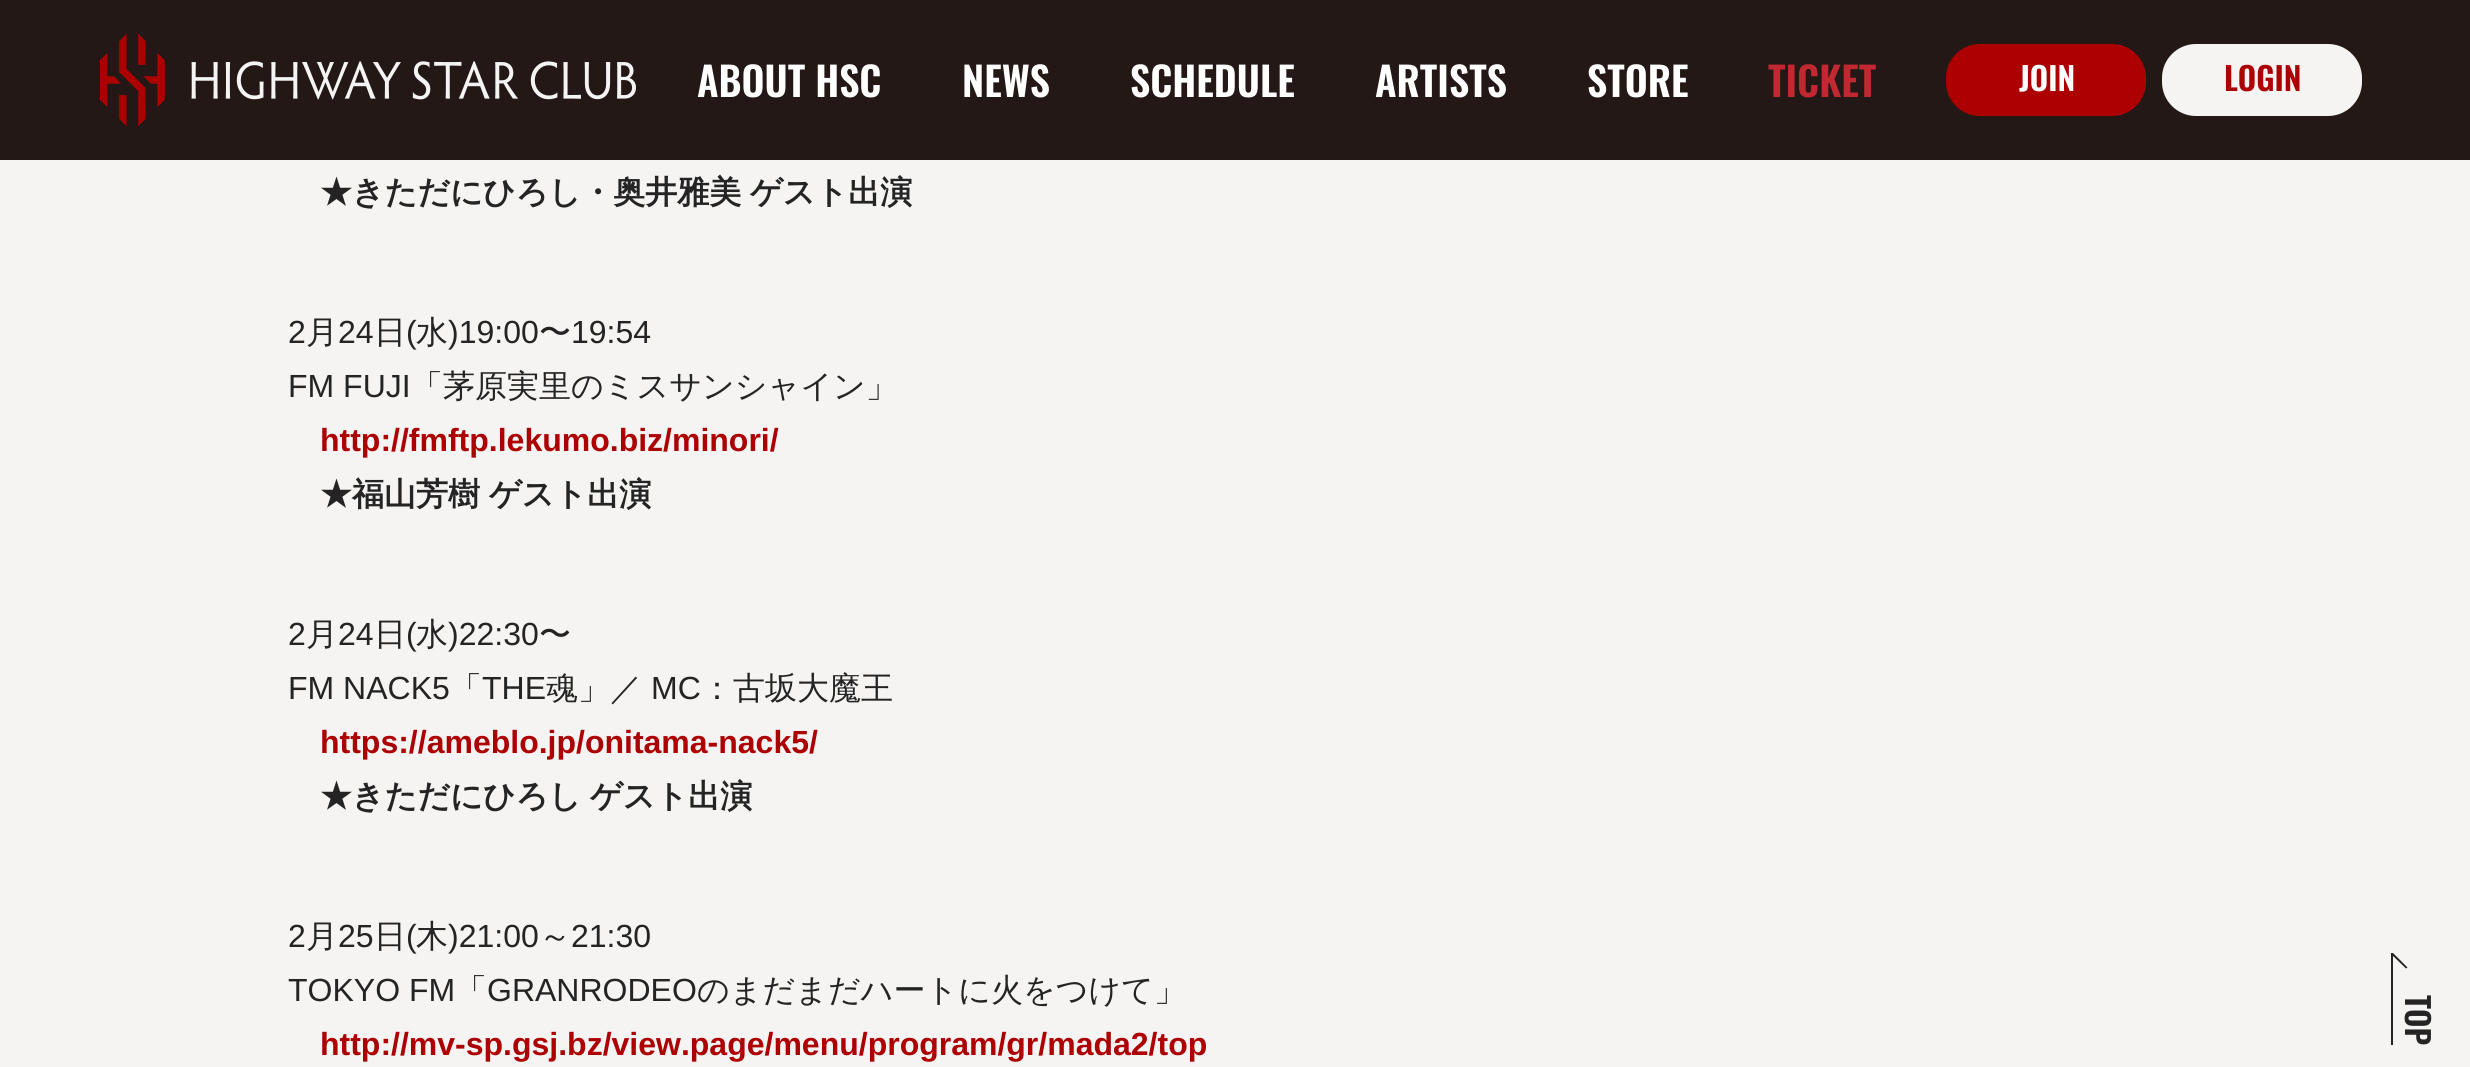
#include <cairo.h>
#include <math.h>
#include <stddef.h>

static cairo_t *c;
static void C(unsigned color){cairo_set_source_rgb(c, (color >> 16) / 255.0, (color >> 8 & 255) / 255.0, (color & 255) / 255.0);}
static void F(const char *family, double size, int italic, int bold){cairo_select_font_face(c, family, italic ? CAIRO_FONT_SLANT_ITALIC : CAIRO_FONT_SLANT_NORMAL,bold ? CAIRO_FONT_WEIGHT_BOLD : CAIRO_FONT_WEIGHT_NORMAL);cairo_set_font_size(c, size);}
static void T(double x, double y, const char *s){cairo_move_to(c, x, y);cairo_show_text(c, s);}
static void R(double x, double y, double w, double h){cairo_rectangle(c, x, y, w, h);cairo_fill(c);}
static void Q(double x, double y, double w, double h, double r){cairo_new_sub_path(c);cairo_arc(c, x + w - r, y + h - r, r, 0, M_PI / 2);cairo_arc(c, x + r, y + h - r, r, M_PI / 2, M_PI);cairo_arc(c, x + r, y + r, r, M_PI, 1.5 * M_PI);cairo_arc(c, x + w - r, y + r, r, 1.5 * M_PI, 2 * M_PI);cairo_close_path(c);}
static void I(const char *path, double x, double y, double w, double h){cairo_surface_t *image = cairo_image_surface_create_from_png(path);cairo_save(c);cairo_set_source_surface(c, image, x, y);cairo_rectangle(c, x, y, w, h);cairo_fill(c);cairo_restore(c);cairo_surface_destroy(image);}
int main(void) {
cairo_surface_t *surface = cairo_image_surface_create(CAIRO_FORMAT_RGB24, 2470, 1067);
c = cairo_create(surface);
cairo_font_options_t *options = cairo_font_options_create();
cairo_font_options_set_hint_metrics(options, CAIRO_HINT_METRICS_OFF);
cairo_font_options_set_hint_style(options, CAIRO_HINT_STYLE_NONE);
cairo_set_font_options(c, options);
cairo_set_miter_limit(c, 4);
C(0xf5f4f3);
cairo_paint(c);
C(0x231815);
R(0,0,2470,160);
I("1.png",100,34,536,92);
F("Oswald SemiBold",40,0,0);
C(0xffffff);
T(697,97,"ABOUT HSC");
T(962,97,"NEWS");
T(1130,97,"SCHEDULE");
T(1375,97,"ARTISTS");
T(1587,97,"STORE");
cairo_save(c);
cairo_rectangle(c,1768,52,108,56);
cairo_clip(c);
C(0xc22832);
T(1768,97,"TICKET");
cairo_restore(c);
C(0xad0003);
Q(1946,44,200,72,34);
cairo_fill(c);
F("Oswald SemiBold",32,0,0);
C(0xffffff);
T(2019,91,"JOIN");
C(0xf5f4f3);
Q(2162,44,200,72,34);
cairo_fill(c);
C(0xad0003);
T(2224,91,"LOGIN");
F("WenQuanYi Zen Hei",32,0,1);
C(0x242424);
T(320,203,"★きただにひろし・奥井雅美");
T(750,203,"ゲスト出演");
F("Liberation Sans",32,0,0);
T(288,343,"2");
F("WenQuanYi Zen Hei Medium",32,0,0);
T(306,343,"月");
F("Liberation Sans",32,0,0);
T(338,343,"24");
F("WenQuanYi Zen Hei Medium",32,0,0);
T(374,343,"日");
F("Liberation Sans",32,0,0);
T(406,343,"(");
F("WenQuanYi Zen Hei Medium",32,0,0);
T(416,343,"水");
F("Liberation Sans",32,0,0);
T(448,343,")19:00");
F("WenQuanYi Zen Hei Medium",32,0,0);
T(539,343,"〜");
F("Liberation Sans",32,0,0);
T(571,343,"19:54");
T(288,397,"FM FUJI");
F("WenQuanYi Zen Hei Medium",32,0,0);
T(411,397,"「茅原実里のミスサンシャイン」");
F("Liberation Sans",32,0,1);
C(0xad0003);
T(320,451,"http://fmftp.lekumo.biz/minori/");
F("WenQuanYi Zen Hei",32,0,1);
C(0x242424);
T(320,505,"★福山芳樹");
T(489,505,"ゲスト出演");
F("Liberation Sans",32,0,0);
T(288,645,"2");
F("WenQuanYi Zen Hei Medium",32,0,0);
T(306,645,"月");
F("Liberation Sans",32,0,0);
T(338,645,"24");
F("WenQuanYi Zen Hei Medium",32,0,0);
T(374,645,"日");
F("Liberation Sans",32,0,0);
T(406,645,"(");
F("WenQuanYi Zen Hei Medium",32,0,0);
T(416,645,"水");
F("Liberation Sans",32,0,0);
T(448,645,")22:30");
F("WenQuanYi Zen Hei Medium",32,0,0);
T(539,645,"〜");
F("Liberation Sans",32,0,0);
T(288,699,"FM NACK5");
F("WenQuanYi Zen Hei Medium",32,0,0);
T(450,699,"「");
F("Liberation Sans",32,0,0);
T(482,699,"THE");
F("WenQuanYi Zen Hei Medium",32,0,0);
T(546,699,"魂」／");
F("Liberation Sans",32,0,0);
T(651,699,"MC");
F("WenQuanYi Zen Hei Medium",32,0,0);
T(701,699,"：古坂大魔王");
F("Liberation Sans",32,0,1);
C(0xad0003);
T(320,753,"https://ameblo.jp/onitama-nack5/");
F("WenQuanYi Zen Hei",32,0,1);
C(0x242424);
T(320,807,"★きただにひろし");
T(590,807,"ゲスト出演");
F("Liberation Sans",32,0,0);
T(288,947,"2");
F("WenQuanYi Zen Hei Medium",32,0,0);
T(306,947,"月");
F("Liberation Sans",32,0,0);
T(338,947,"25");
F("WenQuanYi Zen Hei Medium",32,0,0);
T(374,947,"日");
F("Liberation Sans",32,0,0);
T(406,947,"(");
F("WenQuanYi Zen Hei Medium",32,0,0);
T(416,947,"木");
F("Liberation Sans",32,0,0);
T(448,947,")21:00");
F("WenQuanYi Zen Hei Medium",32,0,0);
T(539,947,"～");
F("Liberation Sans",32,0,0);
T(571,947,"21:30");
T(288,1001,"TOKYO FM");
F("WenQuanYi Zen Hei Medium",32,0,0);
T(455,1001,"「");
F("Liberation Sans",32,0,0);
T(487,1001,"GRANRODEO");
F("WenQuanYi Zen Hei Medium",32,0,0);
T(697,1001,"のまだまだハートに火をつけて」");
F("Liberation Sans",32,0,1);
C(0xad0003);
T(320,1055,"http://mv-sp.gsj.bz/view.page/menu/program/gr/mada2/top");
C(0x242424);
R(2391,953,2,92);
cairo_new_path(c);
cairo_move_to(c,2407.5,967.5);
cairo_line_to(c,2406,968.5);
cairo_line_to(c,2391.5,954.5);
cairo_line_to(c,2393,953);
cairo_close_path(c);
cairo_fill(c);
F("Oswald SemiBold",32,0,0);
cairo_save(c);
cairo_translate(c,2405,995);
cairo_rotate(c,90 * M_PI / 180);
T(0,0,"TOP");
cairo_restore(c);
cairo_surface_write_to_png(surface, "o.png");
cairo_font_options_destroy(options);
cairo_destroy(c);
cairo_surface_destroy(surface);
return 0;
}
